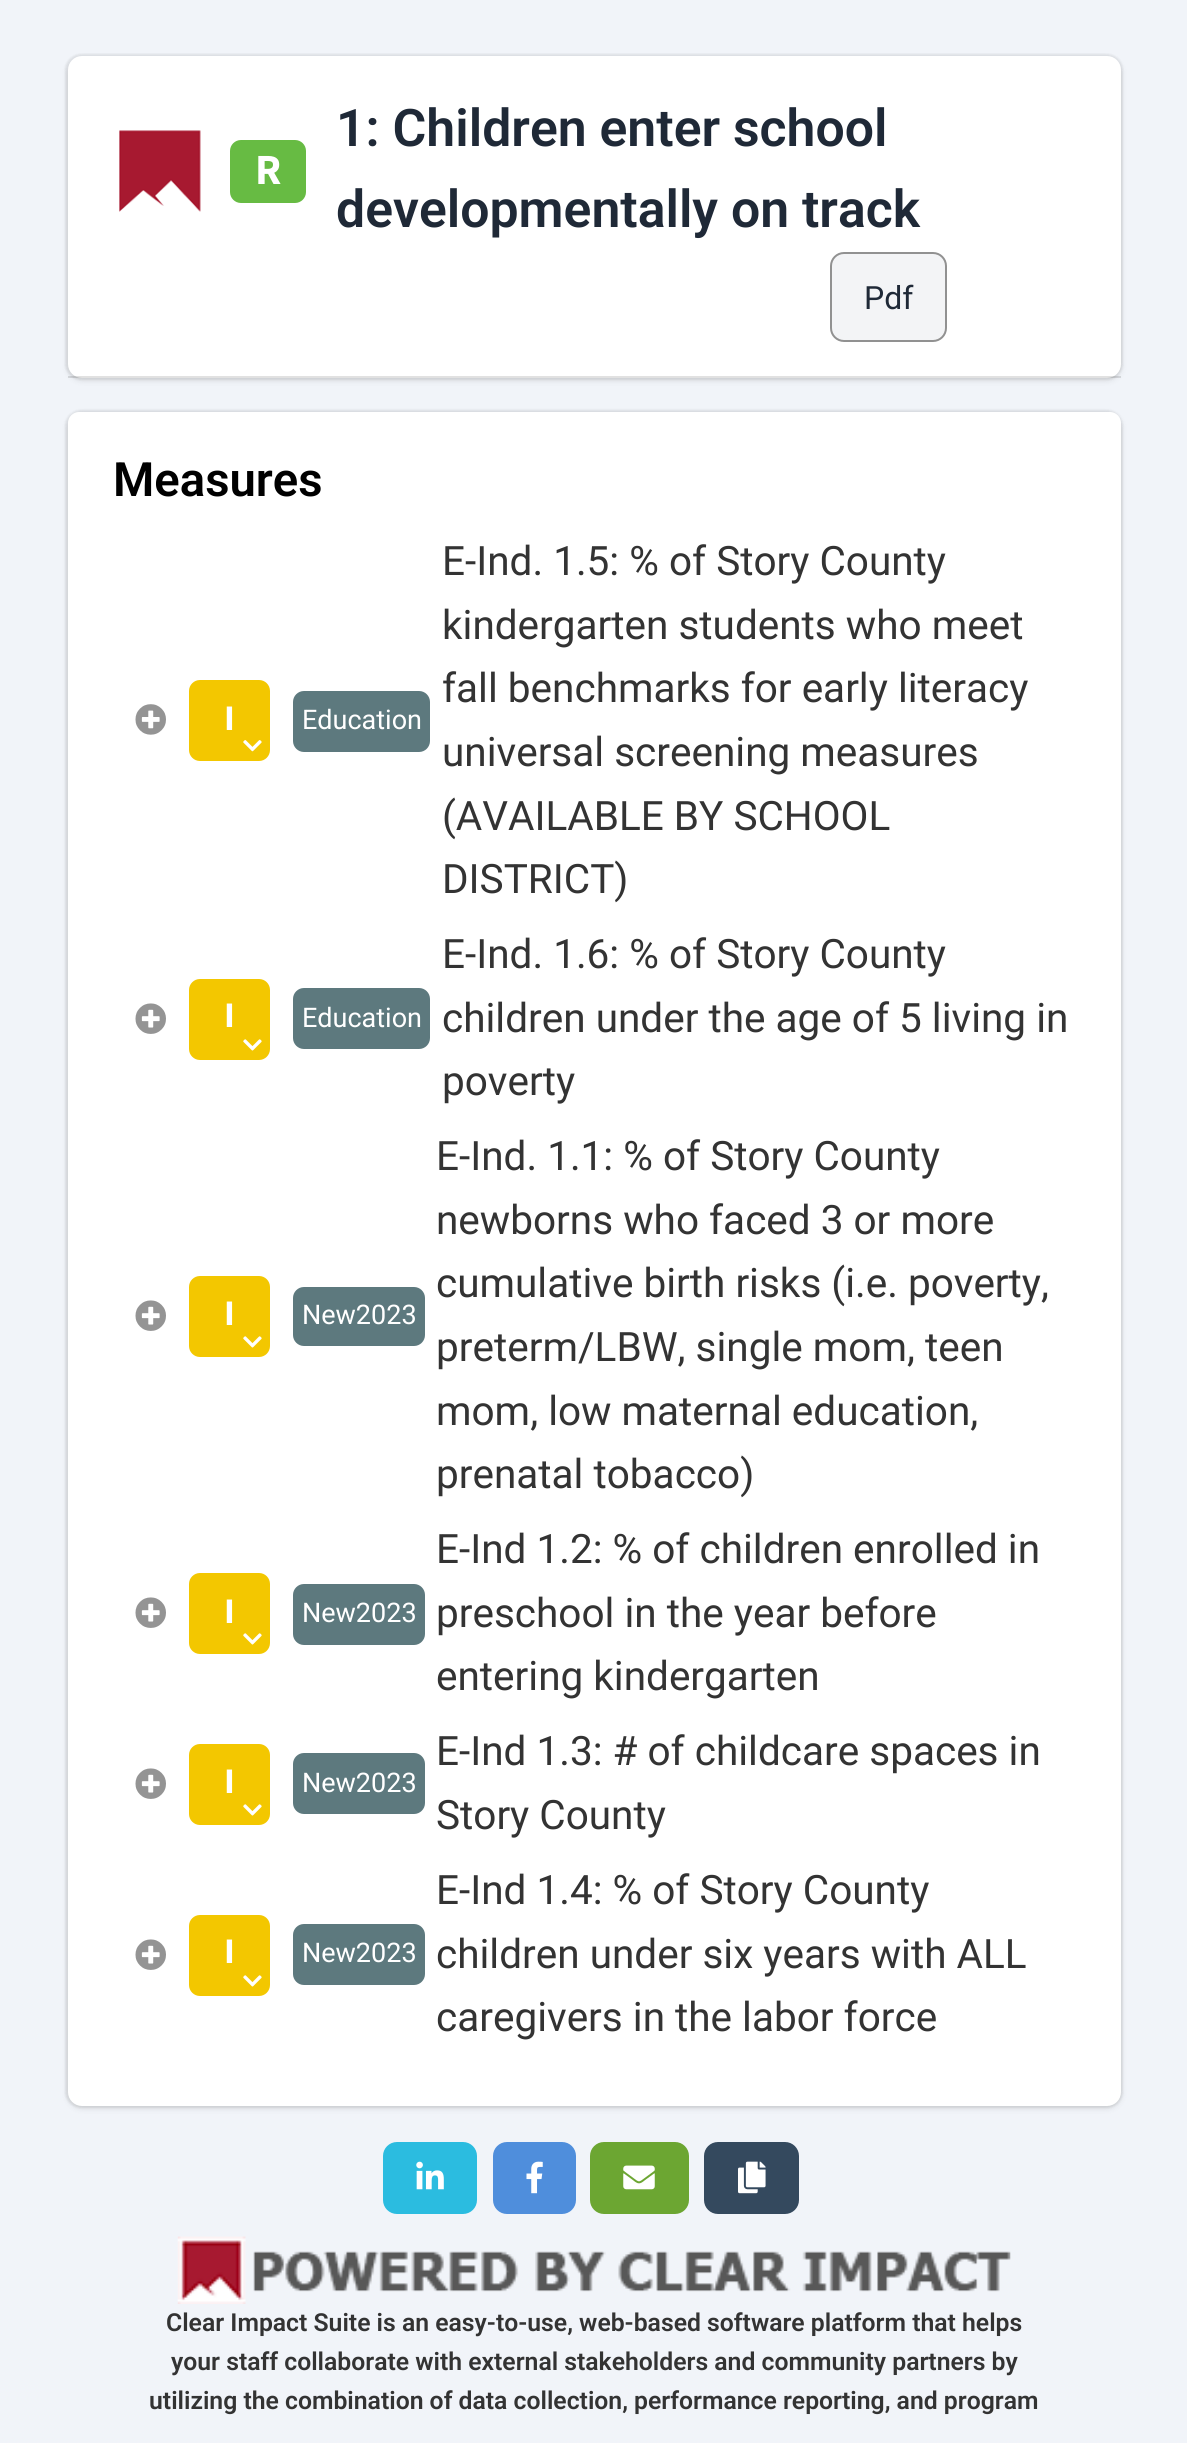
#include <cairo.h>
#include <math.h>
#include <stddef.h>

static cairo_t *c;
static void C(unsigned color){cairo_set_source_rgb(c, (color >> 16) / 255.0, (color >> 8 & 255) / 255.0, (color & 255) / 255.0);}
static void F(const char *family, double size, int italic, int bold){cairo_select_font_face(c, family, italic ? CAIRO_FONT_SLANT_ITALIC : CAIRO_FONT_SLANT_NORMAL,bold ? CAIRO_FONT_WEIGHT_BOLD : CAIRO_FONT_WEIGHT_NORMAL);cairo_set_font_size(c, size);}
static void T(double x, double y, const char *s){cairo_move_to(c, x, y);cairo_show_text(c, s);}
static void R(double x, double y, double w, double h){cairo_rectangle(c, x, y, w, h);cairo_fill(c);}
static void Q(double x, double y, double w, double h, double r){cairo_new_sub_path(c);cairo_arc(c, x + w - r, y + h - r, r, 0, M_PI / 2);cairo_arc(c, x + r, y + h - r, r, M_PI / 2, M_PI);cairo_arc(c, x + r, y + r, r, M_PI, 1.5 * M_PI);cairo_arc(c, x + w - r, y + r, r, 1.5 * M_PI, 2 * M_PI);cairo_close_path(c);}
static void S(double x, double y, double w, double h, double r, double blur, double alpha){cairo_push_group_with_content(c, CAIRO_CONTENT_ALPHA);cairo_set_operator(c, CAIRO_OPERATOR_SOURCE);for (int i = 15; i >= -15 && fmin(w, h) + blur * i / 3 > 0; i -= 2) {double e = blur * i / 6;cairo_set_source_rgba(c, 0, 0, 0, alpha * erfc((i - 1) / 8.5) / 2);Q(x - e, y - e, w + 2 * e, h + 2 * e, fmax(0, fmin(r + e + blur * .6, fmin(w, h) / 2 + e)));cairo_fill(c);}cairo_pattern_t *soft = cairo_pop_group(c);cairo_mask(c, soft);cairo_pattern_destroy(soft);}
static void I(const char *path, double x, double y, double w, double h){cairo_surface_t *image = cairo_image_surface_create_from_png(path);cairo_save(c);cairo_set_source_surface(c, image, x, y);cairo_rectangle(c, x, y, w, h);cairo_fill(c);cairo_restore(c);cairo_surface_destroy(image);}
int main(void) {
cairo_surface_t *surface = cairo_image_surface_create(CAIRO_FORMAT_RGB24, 1187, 2443);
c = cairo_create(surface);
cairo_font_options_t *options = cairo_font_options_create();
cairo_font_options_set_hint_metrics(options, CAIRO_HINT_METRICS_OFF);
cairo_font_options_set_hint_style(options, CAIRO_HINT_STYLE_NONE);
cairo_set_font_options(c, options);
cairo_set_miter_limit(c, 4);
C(0xf1f4f9);
cairo_paint(c);
C(0x000000);
S(68,59,1053,321,14,3.5,.12);
S(65,54,1058,326,16,1,.07);
C(0xffffff);
Q(68,56,1053,322,14);
cairo_fill(c);
cairo_set_source_rgba(c,0,0,0,0.12);
R(68,376,1053,2);
I("1.png",119,130,82,82);
C(0x67bb43);
Q(230,140,76,63,11);
cairo_fill(c);
F("Source Sans Pro",43,0,1);
C(0xffffff);
T(255,184,"R");
F("Roboto SemiBold",51.75,0,0);
C(0x1f2937);
T(336,146,"1: Children enter school");
T(336,227,"developmentally on track");
C(0xf3f4f6);
Q(831,253,115,88,13);
cairo_fill_preserve(c);
C(0x919191);
cairo_stroke(c);
F("Roboto",32,0,0);
C(0x1f2937);
T(864,309,"Pdf");
C(0x000000);
S(68,414,1053,1694,14,3.5,.12);
S(65,410,1058,1698,16,1,.07);
C(0xffffff);
Q(68,412,1053,1694,14);
cairo_fill(c);
cairo_new_path(c);
cairo_move_to(c,79,412);
cairo_line_to(c,1110,412);
cairo_curve_to(c,1116,412,1121,417,1121,423);
cairo_line_to(c,1121,520);
cairo_line_to(c,68,520);
cairo_line_to(c,68,423);
cairo_curve_to(c,68,417,73,412,79,412);
cairo_close_path(c);
cairo_fill(c);
F("Roboto SemiBold",47.25,0,0);
C(0x000000);
T(113,496,"Measures");
I("2.png",135,704,31,31);
C(0xf3c700);
Q(189,680,81,81,11);
cairo_fill(c);
F("Source Sans Pro",36,0,1);
C(0xffffff);
T(224,730,"I");
I("3.png",243,740,19,12);
C(0x5d797e);
Q(293,691,137,61,11);
cairo_fill(c);
F("Roboto",27,0,0);
C(0xffffff);
T(302,729,"Education");
F("Roboto",40.5,0,0);
C(0x333333);
T(442,575,"E-Ind. 1.5: % of Story County");
T(442,639,"kindergarten students who meet");
T(442,702,"fall benchmarks for early literacy");
T(442,766,"universal screening measures");
T(442,830,"(AVAILABLE BY SCHOOL");
T(442,893,"DISTRICT)");
I("4.png",135,1003,31,31);
C(0xf3c700);
Q(189,979,81,81,11);
cairo_fill(c);
F("Source Sans Pro",36,0,1);
C(0xffffff);
T(224,1027,"I");
I("5.png",243,1039,19,12);
C(0x5d797e);
Q(293,988,137,61,11);
cairo_fill(c);
F("Roboto",27,0,0);
C(0xffffff);
T(302,1027,"Education");
F("Roboto",40.5,0,0);
C(0x333333);
T(442,968,"E-Ind. 1.6: % of Story County");
T(442,1032,"children under the age of 5 living in");
T(442,1095,"poverty");
I("4.png",135,1300,31,31);
C(0xf3c700);
Q(189,1276,81,81,11);
cairo_fill(c);
F("Source Sans Pro",36,0,1);
C(0xffffff);
T(224,1325,"I");
I("5.png",243,1336,19,12);
C(0x5d797e);
Q(293,1287,132,59,11);
cairo_fill(c);
F("Roboto",27,0,0);
C(0xffffff);
T(302,1324,"New2023");
F("Roboto",40.5,0,0);
C(0x333333);
T(436,1170,"E-Ind. 1.1: % of Story County");
T(436,1234,"newborns who faced 3 or more");
T(436,1297,"cumulative birth risks (i.e. poverty,");
T(436,1361,"preterm/LBW, single mom, teen");
T(436,1425,"mom, low maternal education,");
T(436,1488,"prenatal tobacco)");
I("4.png",135,1597,31,31);
C(0xf3c700);
Q(189,1573,81,81,11);
cairo_fill(c);
F("Source Sans Pro",36,0,1);
C(0xffffff);
T(224,1623,"I");
I("5.png",243,1633,19,12);
C(0x5d797e);
Q(293,1584,132,61,11);
cairo_fill(c);
F("Roboto",27,0,0);
C(0xffffff);
T(302,1622,"New2023");
F("Roboto",40.5,0,0);
C(0x333333);
T(436,1563,"E-Ind 1.2: % of children enrolled in");
T(436,1627,"preschool in the year before");
T(436,1690,"entering kindergarten");
I("4.png",135,1768,31,31);
C(0xf3c700);
Q(189,1744,81,81,11);
cairo_fill(c);
F("Source Sans Pro",36,0,1);
C(0xffffff);
T(224,1793,"I");
I("5.png",243,1804,19,12);
C(0x5d797e);
Q(293,1753,132,61,11);
cairo_fill(c);
F("Roboto",27,0,0);
C(0xffffff);
T(302,1792,"New2023");
F("Roboto",40.5,0,0);
C(0x333333);
T(436,1765,"E-Ind 1.3: # of childcare spaces in");
T(436,1829,"Story County");
I("4.png",135,1939,31,31);
C(0xf3c700);
Q(189,1915,81,81,11);
cairo_fill(c);
F("Source Sans Pro",36,0,1);
C(0xffffff);
T(224,1963,"I");
I("5.png",243,1975,19,12);
C(0x5d797e);
Q(293,1924,132,61,11);
cairo_fill(c);
F("Roboto",27,0,0);
C(0xffffff);
T(302,1962,"New2023");
F("Roboto",40.5,0,0);
C(0x333333);
T(436,1904,"E-Ind 1.4: % of Story County");
T(436,1968,"children under six years with ALL");
T(436,2031,"caregivers in the labor force");
C(0x2bbce0);
Q(384,2143,92,70,13);
cairo_fill_preserve(c);
cairo_stroke(c);
I("6.png",416,2161,28,29);
C(0x4f8edc);
Q(494,2143,81,70,13);
cairo_fill_preserve(c);
cairo_stroke(c);
I("7.png",526,2161,17,33);
C(0x6ca632);
Q(591,2143,97,70,13);
cairo_fill_preserve(c);
cairo_stroke(c);
I("8.png",623,2165,32,25);
C(0x34495e);
Q(705,2143,93,70,13);
cairo_fill_preserve(c);
cairo_stroke(c);
I("9.png",738,2161,28,33);
I("10.png",177,2236,834,68);
F("Roboto SemiBold",24.75,0,0);
C(0x333333);
T(166,2331,"Clear Impact Suite is an easy-to-use, web-based software platform that helps");
T(171,2370,"your staff collaborate with external stakeholders and community partners by");
T(149,2409,"utilizing the combination of data collection, performance reporting, and program");
cairo_surface_write_to_png(surface, "o.png");
cairo_font_options_destroy(options);
cairo_destroy(c);
cairo_surface_destroy(surface);
return 0;
}
